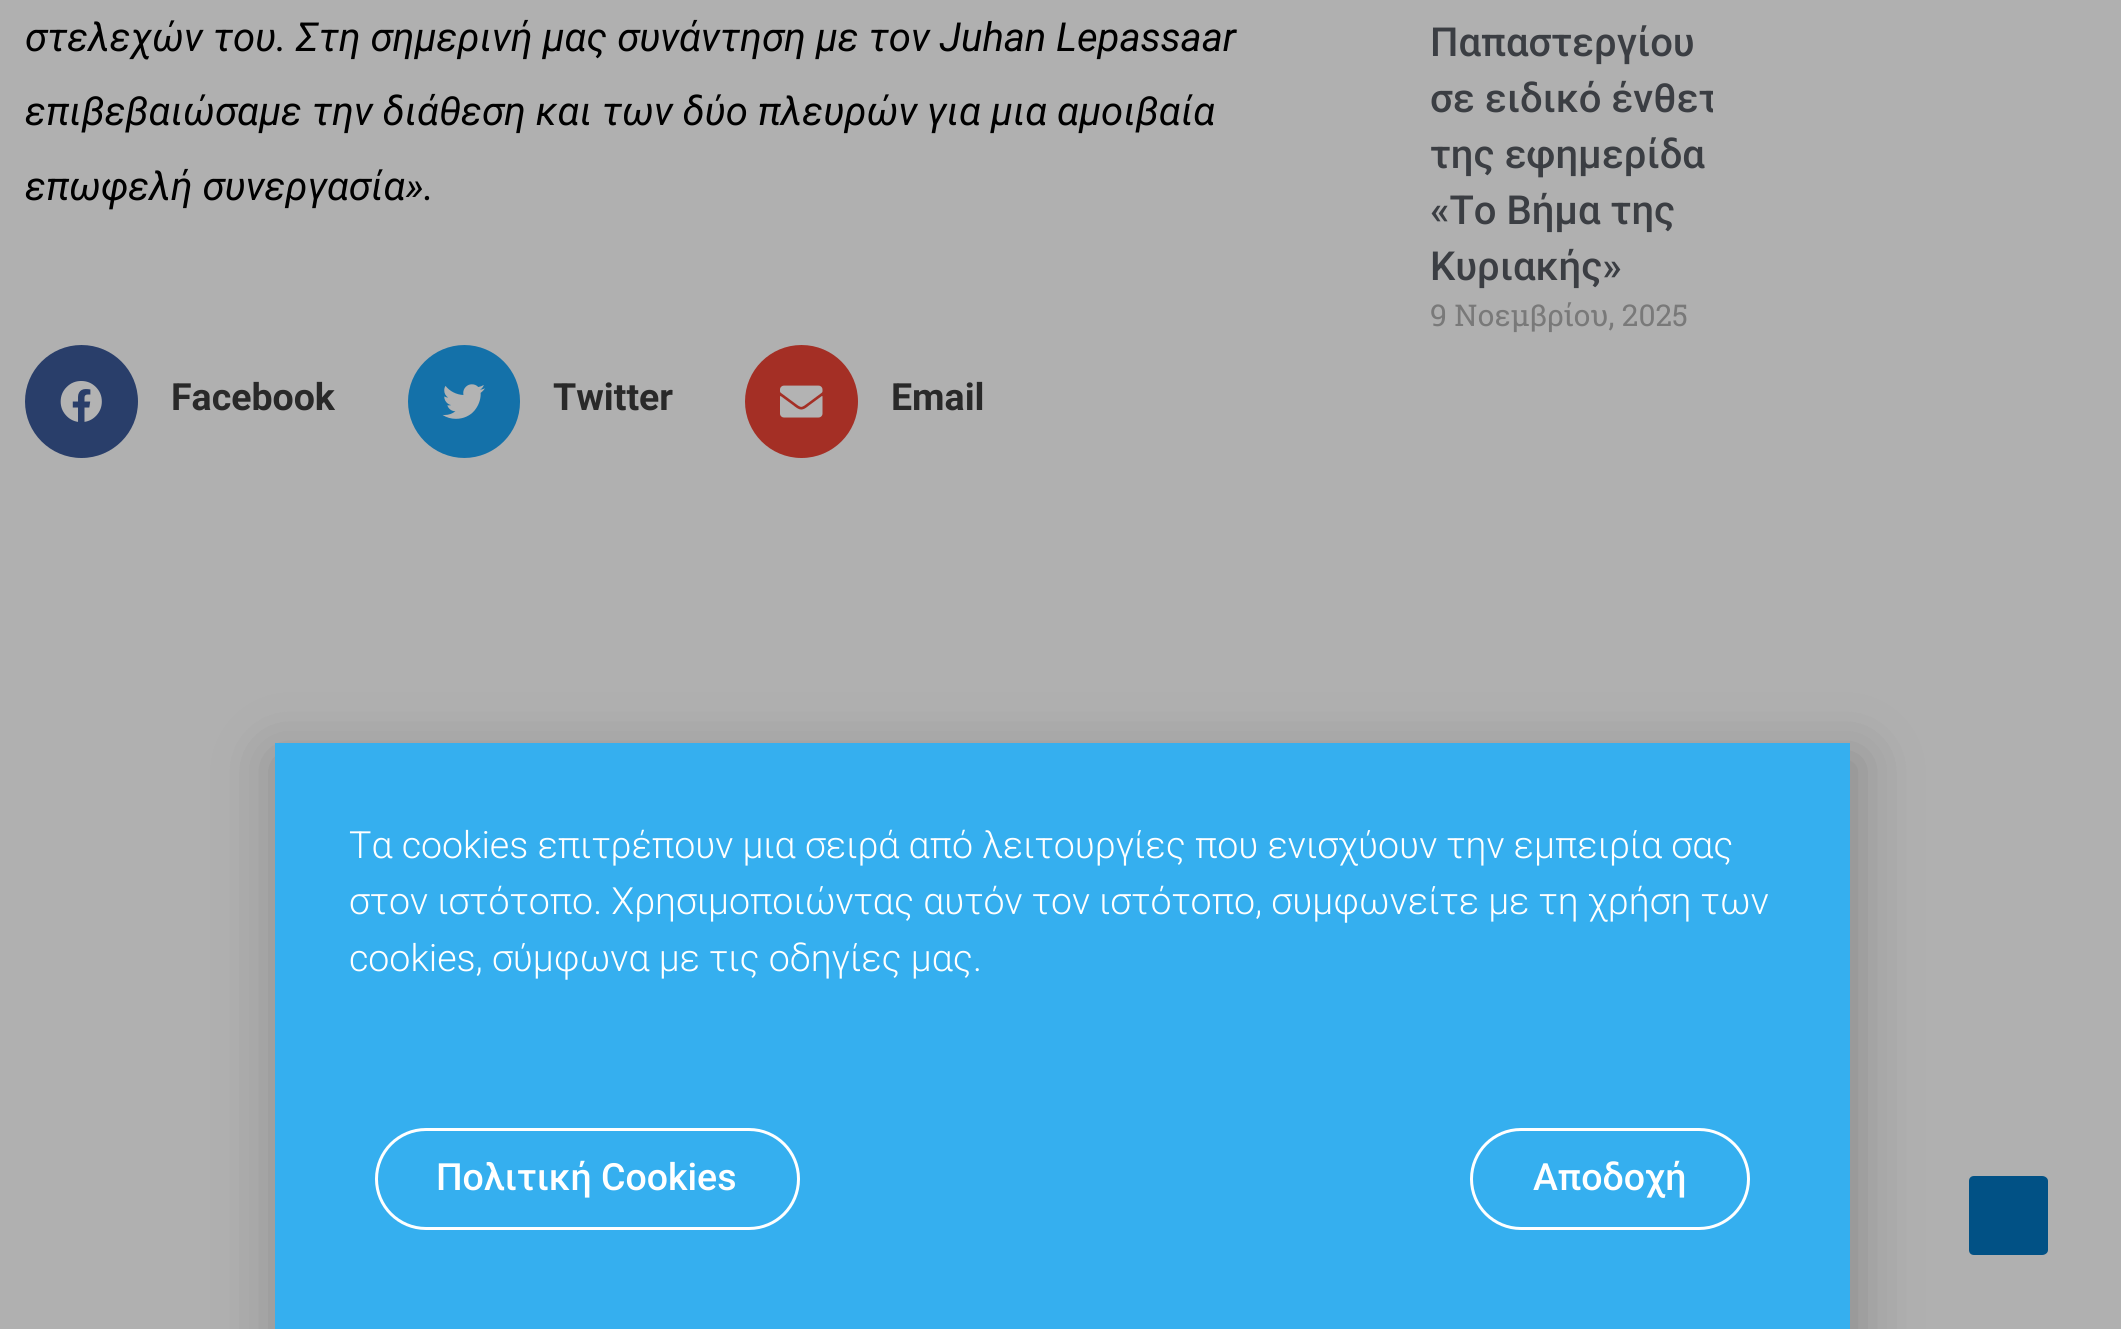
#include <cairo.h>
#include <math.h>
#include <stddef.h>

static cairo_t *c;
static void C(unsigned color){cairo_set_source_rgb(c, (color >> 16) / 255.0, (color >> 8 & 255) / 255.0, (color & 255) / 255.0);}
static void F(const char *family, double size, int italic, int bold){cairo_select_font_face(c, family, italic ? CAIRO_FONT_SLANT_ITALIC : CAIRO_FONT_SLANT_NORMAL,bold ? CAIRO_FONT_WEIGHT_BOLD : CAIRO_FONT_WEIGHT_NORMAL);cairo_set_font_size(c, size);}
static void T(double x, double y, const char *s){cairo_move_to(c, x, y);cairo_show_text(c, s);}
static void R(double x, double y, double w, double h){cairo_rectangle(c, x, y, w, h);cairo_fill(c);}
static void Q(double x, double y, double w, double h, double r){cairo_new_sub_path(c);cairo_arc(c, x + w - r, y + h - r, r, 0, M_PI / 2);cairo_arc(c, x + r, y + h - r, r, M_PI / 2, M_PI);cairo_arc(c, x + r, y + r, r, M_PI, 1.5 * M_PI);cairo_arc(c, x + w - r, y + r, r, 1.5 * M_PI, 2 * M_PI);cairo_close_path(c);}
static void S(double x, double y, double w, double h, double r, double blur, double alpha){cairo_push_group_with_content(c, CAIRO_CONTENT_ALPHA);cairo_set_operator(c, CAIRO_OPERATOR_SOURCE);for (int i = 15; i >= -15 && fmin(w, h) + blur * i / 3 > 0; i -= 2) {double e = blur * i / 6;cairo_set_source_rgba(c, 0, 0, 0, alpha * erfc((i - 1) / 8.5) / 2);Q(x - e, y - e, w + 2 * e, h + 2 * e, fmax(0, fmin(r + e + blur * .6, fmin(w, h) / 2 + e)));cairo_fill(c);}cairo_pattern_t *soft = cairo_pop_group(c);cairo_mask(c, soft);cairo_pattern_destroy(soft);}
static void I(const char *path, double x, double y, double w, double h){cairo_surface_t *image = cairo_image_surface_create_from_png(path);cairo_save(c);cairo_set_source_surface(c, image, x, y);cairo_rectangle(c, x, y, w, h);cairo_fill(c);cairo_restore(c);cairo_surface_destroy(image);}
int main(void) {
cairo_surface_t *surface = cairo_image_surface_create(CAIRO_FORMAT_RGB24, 2121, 1329);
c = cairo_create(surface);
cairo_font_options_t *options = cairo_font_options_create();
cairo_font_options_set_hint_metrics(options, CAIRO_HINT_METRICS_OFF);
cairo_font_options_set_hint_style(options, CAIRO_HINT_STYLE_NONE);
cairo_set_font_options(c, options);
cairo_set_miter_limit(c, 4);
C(0xb0b0b0);
cairo_paint(c);
F("Roboto",40,1,0);
C(0x000000);
T(25,51,"στελεχών του. Στη σημερινή μας συνάντηση με τον Juhan Lepassaar");
T(25,125,"επιβεβαιώσαμε την διάθεση και των δύο πλευρών για μια αμοιβαία");
T(25,200,"επωφελή συνεργασία».");
C(0x293e6a);
cairo_new_path(c);
cairo_arc(c,81.5,401.5,56.5,0,2 * M_PI);
cairo_fill(c);
I("1.png",60,381,42,41);
F("Roboto",37.5,0,1);
C(0x292929);
T(171,410,"Facebook");
C(0x1471a9);
cairo_new_path(c);
cairo_move_to(c,464.5,345);
cairo_line_to(c,464,345);
cairo_curve_to(c,495,345,520,370,520,401);
cairo_line_to(c,520,402);
cairo_curve_to(c,520,433,495,458,464,458);
cairo_line_to(c,464.5,458);
cairo_curve_to(c,433.5,458,408,432.5,408,401.5);
cairo_curve_to(c,408,370.5,433.5,345,464.5,345);
cairo_close_path(c);
cairo_fill(c);
I("2.png",442,384,43,35);
C(0x292929);
T(553,410,"Twitter");
C(0xa42f25);
cairo_new_path(c);
cairo_arc(c,801.5,401.5,56.5,0,2 * M_PI);
cairo_fill(c);
I("3.png",780,385,43,33);
C(0x292929);
T(891,410,"Email");
F("Roboto Medium",40,0,0);
C(0x3b3e43);
T(1430,56,"Παπαστεργίου");
cairo_save(c);
cairo_rectangle(c,1430,0,283,368);
cairo_clip(c);
T(1430,112,"σε ειδικό ένθετ");
cairo_restore(c);
T(1430,168,"της εφημερίδα");
T(1430,224,"«Το Βήμα της");
T(1430,280,"Κυριακής»");
F("Roboto Slab",30,0,0);
C(0x797979);
T(1430,326,"9 Νοεμβρίου, 2025");
C(0x000000);
S(273,755,1590,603,0,29,.2);
C(0x35afef);
R(275,743,1575,586);
F("Roboto Light",37.5,0,0);
C(0xffffff);
T(349,858,"Τα cookies επιτρέπουν μια σειρά από λειτουργίες που ενισχύουν την εμπειρία σας");
T(349,914,"στον ιστότοπο. Χρησιμοποιώντας αυτόν τον ιστότοπο, συμφωνείτε με τη χρήση των");
T(349,971,"cookies, σύμφωνα με τις οδηγίες μας.");
Q(376.5,1129.5,422,99,49.5);
cairo_set_line_width(c,3);
cairo_stroke(c);
F("Roboto Medium",37.5,0,0);
T(436,1190,"Πολιτική Cookies");
Q(1471.5,1129.5,277,99,49.5);
cairo_stroke(c);
T(1533,1190,"Αποδοχή");
C(0x015185);
cairo_new_path(c);
cairo_move_to(c,2042,1255);
cairo_line_to(c,1974,1255);
cairo_curve_to(c,1971,1255,1969,1253,1969,1250);
cairo_line_to(c,1969,1181);
cairo_curve_to(c,1969,1178,1971,1176,1974,1176);
cairo_line_to(c,2042,1176);
cairo_curve_to(c,2045,1176,2048,1178,2048,1181);
cairo_line_to(c,2048,1250);
cairo_curve_to(c,2048,1253,2045,1255,2042,1255);
cairo_close_path(c);
cairo_fill(c);
cairo_surface_write_to_png(surface, "o.png");
cairo_font_options_destroy(options);
cairo_destroy(c);
cairo_surface_destroy(surface);
return 0;
}
